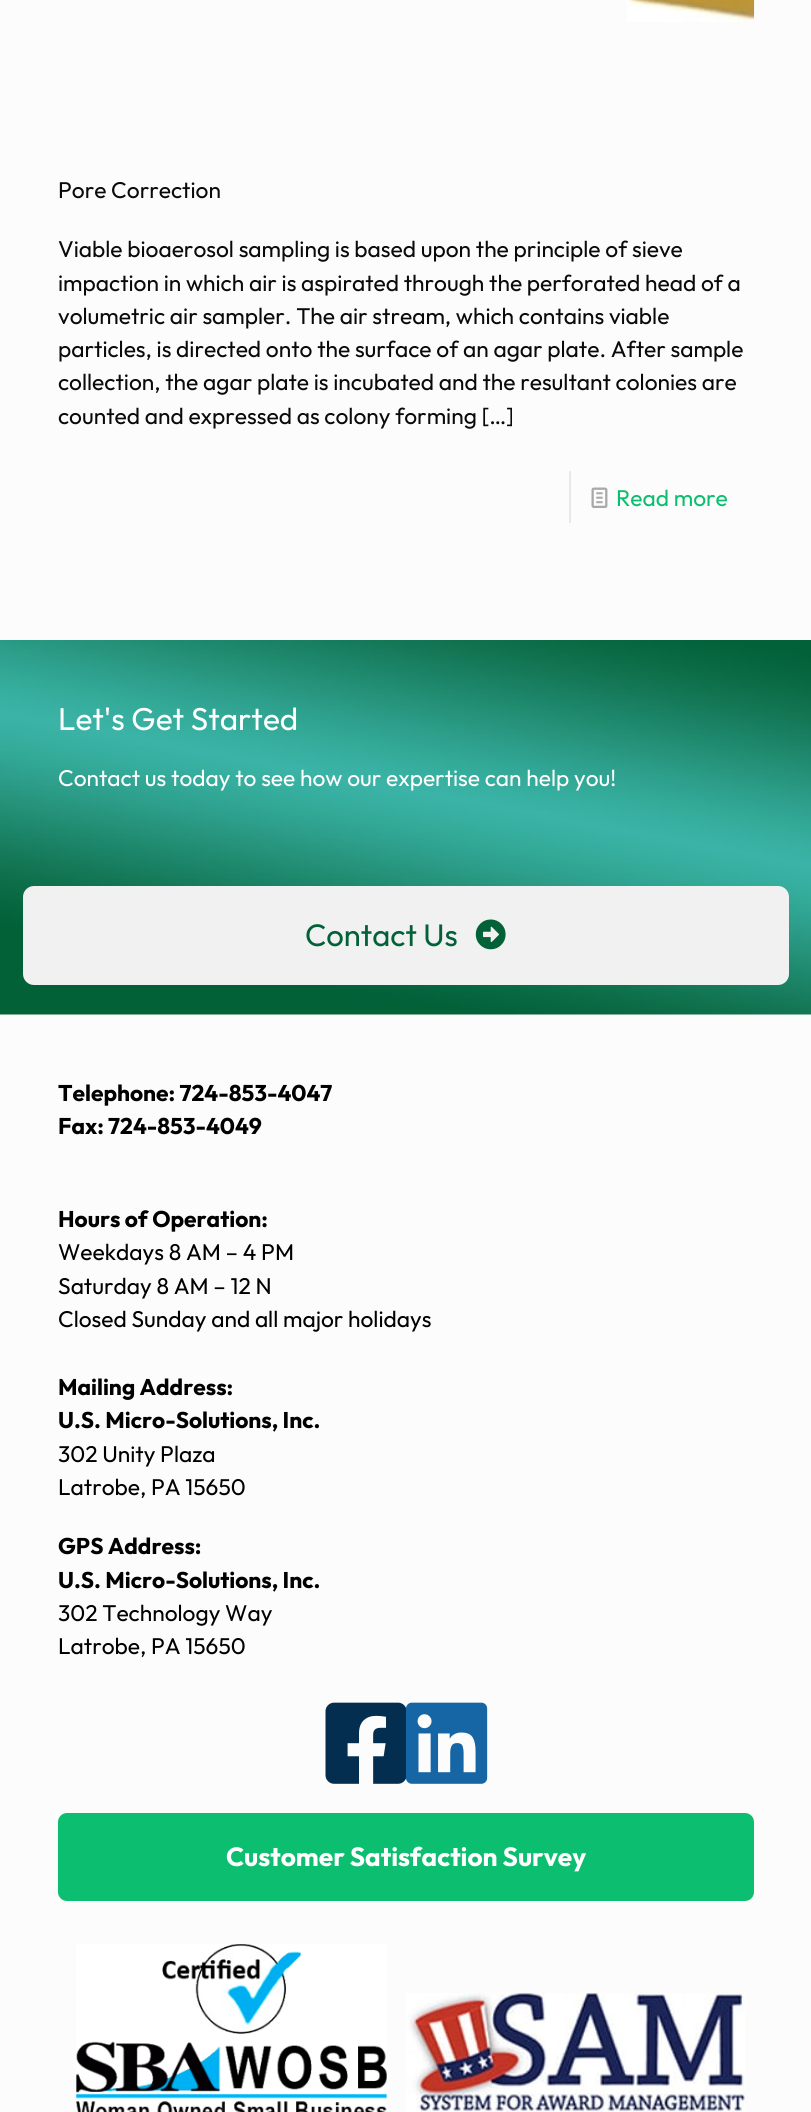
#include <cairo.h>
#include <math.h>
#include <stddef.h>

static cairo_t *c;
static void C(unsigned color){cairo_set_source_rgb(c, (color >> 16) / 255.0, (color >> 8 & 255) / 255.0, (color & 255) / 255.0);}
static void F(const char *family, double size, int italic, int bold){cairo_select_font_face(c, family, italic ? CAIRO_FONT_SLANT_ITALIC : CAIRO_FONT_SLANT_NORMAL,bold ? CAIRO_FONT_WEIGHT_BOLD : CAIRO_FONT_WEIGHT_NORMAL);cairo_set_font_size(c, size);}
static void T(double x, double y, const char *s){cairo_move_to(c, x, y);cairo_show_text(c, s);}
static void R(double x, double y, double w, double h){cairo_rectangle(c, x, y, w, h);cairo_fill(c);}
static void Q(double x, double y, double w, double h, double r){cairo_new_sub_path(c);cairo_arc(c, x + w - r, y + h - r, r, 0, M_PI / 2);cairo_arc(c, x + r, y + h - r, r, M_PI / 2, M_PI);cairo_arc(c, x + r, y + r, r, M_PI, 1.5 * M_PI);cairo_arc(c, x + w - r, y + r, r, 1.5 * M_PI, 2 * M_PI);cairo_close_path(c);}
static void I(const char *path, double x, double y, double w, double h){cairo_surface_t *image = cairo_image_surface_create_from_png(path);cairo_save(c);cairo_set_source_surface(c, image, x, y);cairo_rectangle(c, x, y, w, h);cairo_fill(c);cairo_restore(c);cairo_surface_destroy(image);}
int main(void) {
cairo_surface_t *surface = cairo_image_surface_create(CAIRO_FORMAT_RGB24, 811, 2112);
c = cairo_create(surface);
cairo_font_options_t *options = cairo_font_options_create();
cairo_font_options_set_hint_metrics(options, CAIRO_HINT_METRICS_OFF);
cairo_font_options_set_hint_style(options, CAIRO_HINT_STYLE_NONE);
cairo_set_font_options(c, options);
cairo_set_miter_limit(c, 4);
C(0xfcfcfc);
cairo_paint(c);
I("1.png",627,0,128,22);
F("Outfit",22.75,0,0);
C(0x0a0a0a);
T(58,198,"Pore Correction");
T(58,257,"Viable bioaerosol sampling is based upon the principle of sieve");
T(58,291,"impaction in which air is aspirated through the perforated head of a");
T(58,324,"volumetric air sampler. The air stream, which contains viable");
T(58,357,"particles, is directed onto the surface of an agar plate. After sample");
T(58,390,"collection, the agar plate is incubated and the resultant colonies are");
T(58,424,"counted and expressed as colony forming […]");
C(0xe8e8e8);
R(569,471,2,52);
I("2.png",591,487,17,21);
C(0x0cbe70);
T(616,506,"Read more");
I("3.png",0,640,811,375);
F("Outfit",31.5,0,0);
C(0xffffff);
T(58,730,"Let's Get Started");
F("Outfit",22.75,0,0);
T(58,786,"Contact us today to see how our expertise can help you!");
C(0xf1f1f1);
Q(23,886,766,99,11);
cairo_fill(c);
F("Outfit",31,0,0);
C(0x036138);
T(305,946,"Contact Us");
I("4.png",475,919,31,31);
F("Outfit",22.75,0,1);
C(0x000000);
T(58,1101,"Telephone: 724-853-4047");
T(58,1134,"Fax: 724-853-4049");
T(58,1227,"Hours of Operation:");
F("Outfit",22.75,0,0);
T(58,1260,"Weekdays 8 AM – 4 PM");
T(58,1294,"Saturday 8 AM – 12 N");
T(58,1327,"Closed Sunday and all major holidays");
F("Outfit",22.75,0,1);
T(58,1395,"Mailing Address:");
T(58,1428,"U.S. Micro-Solutions, Inc.");
F("Outfit",22.75,0,0);
T(58,1462,"302 Unity Plaza");
T(58,1495,"Latrobe, PA 15650");
F("Outfit",22.75,0,1);
T(58,1554,"GPS Address:");
T(58,1588,"U.S. Micro-Solutions, Inc.");
F("Outfit",22.75,0,0);
T(58,1621,"302 Technology Way");
T(58,1654,"Latrobe, PA 15650");
I("5.png",325,1702,82,82);
I("6.png",406,1702,82,82);
C(0x0cbe70);
Q(58,1813,696,88,9);
cairo_fill(c);
F("Outfit",26.25,0,1);
C(0xffffff);
T(226,1866,"Customer Satisfaction Survey");
I("7.png",76,1944,311,168);
I("8.png",406,1993,339,119);
cairo_surface_write_to_png(surface, "o.png");
cairo_font_options_destroy(options);
cairo_destroy(c);
cairo_surface_destroy(surface);
return 0;
}
